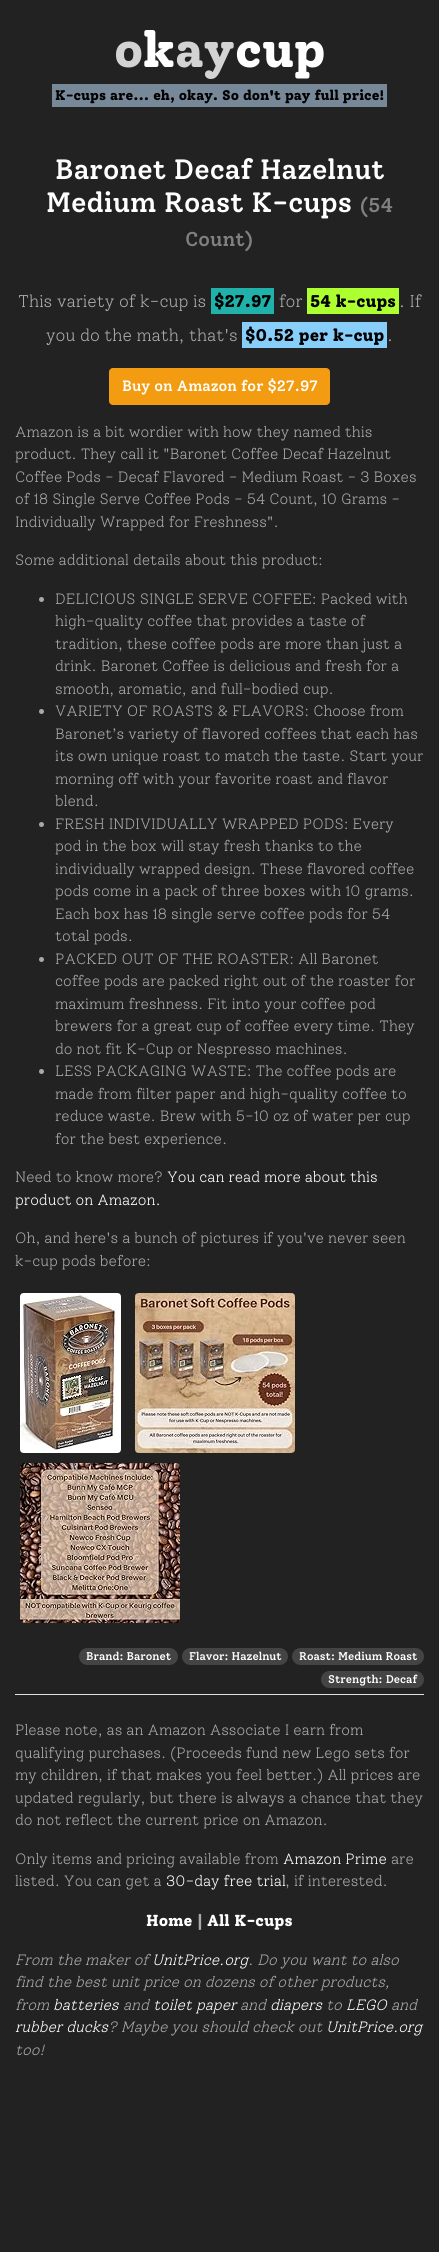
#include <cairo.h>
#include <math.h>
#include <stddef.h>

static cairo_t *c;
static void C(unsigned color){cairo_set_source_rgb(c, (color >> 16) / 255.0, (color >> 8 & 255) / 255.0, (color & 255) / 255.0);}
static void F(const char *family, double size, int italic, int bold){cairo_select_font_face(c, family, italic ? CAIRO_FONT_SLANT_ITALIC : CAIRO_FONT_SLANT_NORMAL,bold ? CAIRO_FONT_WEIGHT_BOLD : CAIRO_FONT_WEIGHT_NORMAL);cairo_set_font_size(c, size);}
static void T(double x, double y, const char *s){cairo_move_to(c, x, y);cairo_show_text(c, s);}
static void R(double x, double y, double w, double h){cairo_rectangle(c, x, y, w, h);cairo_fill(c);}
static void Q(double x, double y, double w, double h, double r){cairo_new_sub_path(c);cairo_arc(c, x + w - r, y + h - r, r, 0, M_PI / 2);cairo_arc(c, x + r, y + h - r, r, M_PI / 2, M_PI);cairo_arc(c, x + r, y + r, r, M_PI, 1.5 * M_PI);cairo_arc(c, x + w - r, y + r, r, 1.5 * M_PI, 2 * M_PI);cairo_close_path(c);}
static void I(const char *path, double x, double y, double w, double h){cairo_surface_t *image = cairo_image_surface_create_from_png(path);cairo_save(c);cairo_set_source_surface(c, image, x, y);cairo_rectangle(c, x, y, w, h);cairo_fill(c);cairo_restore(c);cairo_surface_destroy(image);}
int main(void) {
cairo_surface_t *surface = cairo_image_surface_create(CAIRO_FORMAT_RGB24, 439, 2252);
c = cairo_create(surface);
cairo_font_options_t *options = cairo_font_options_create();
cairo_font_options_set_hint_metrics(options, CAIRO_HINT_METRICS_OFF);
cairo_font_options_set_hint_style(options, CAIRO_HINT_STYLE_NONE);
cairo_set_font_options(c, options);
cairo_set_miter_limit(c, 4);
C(0x222222);
cairo_paint(c);
F("Solway ExtraBold",50,0,0);
C(0xd3d3d3);
T(114,67,"o");
C(0xffffff);
T(143,67,"k");
C(0xd3d3d3);
T(175,67,"ay");
C(0xffffff);
T(235,67,"cup");
C(0x778899);
R(52,84,335,23);
F("Solway ExtraBold",14,0,0);
C(0x000000);
T(55,100,"K-cups are... eh, okay. So don't pay full price!");
F("Solway Medium",28,0,0);
C(0xffffff);
T(55,179,"Baronet Decaf Hazelnut");
T(46,212,"Medium Roast K-cups");
F("Solway Medium",20,0,0);
C(0x808080);
T(360,212,"(54");
T(185,246,"Count)");
F("Solway Light",17,0,0);
C(0xa9a9a9);
T(18,307,"This variety of k-cup is");
C(0x20b2aa);
R(211,288,63,26);
F("Solway ExtraBold",17,0,0);
C(0x000000);
T(214,307,"$27.97");
F("Solway Light",17,0,0);
C(0xa9a9a9);
T(279,307,"for");
C(0xadff2f);
R(307,288,92,26);
F("Solway ExtraBold",17,0,0);
C(0x000000);
T(310,307,"54 k-cups");
F("Solway Light",17,0,0);
C(0xa9a9a9);
T(399,307,". If");
T(46,341,"you do the math, that's");
C(0x87cefa);
R(242,322,145,26);
F("Solway ExtraBold",17,0,0);
C(0x000000);
T(245,341,"$0.52 per k-cup");
F("Solway Light",17,0,0);
C(0xa9a9a9);
T(387,341,".");
C(0xf39c12);
Q(109.5,368.5,220,36,3.5);
cairo_fill_preserve(c);
cairo_set_line_width(c,1);
cairo_stroke(c);
F("Solway Medium",15,0,0);
C(0xffffff);
T(122,391,"Buy on Amazon for $27.97");
F("Solway Light",15,0,0);
C(0xa9a9a9);
T(15,437,"Amazon is a bit wordier with how they named this");
T(15,459,"product. They call it \"Baronet Coffee Decaf Hazelnut");
T(15,482,"Coffee Pods - Decaf Flavored - Medium Roast - 3 Boxes");
T(15,504,"of 18 Single Serve Coffee Pods - 54 Count, 10 Grams -");
T(15,527,"Individually Wrapped for Freshness\".");
T(15,565,"Some additional details about this product:");
cairo_new_path(c);
cairo_arc(c,41.5,599.5,2.5,0,2 * M_PI);
cairo_fill(c);
T(55,604,"DELICIOUS SINGLE SERVE COFFEE: Packed with");
T(55,626,"high-quality coffee that provides a taste of");
T(55,649,"tradition, these coffee pods are more than just a");
T(55,671,"drink. Baronet Coffee is delicious and fresh for a");
T(55,694,"smooth, aromatic, and full-bodied cup.");
cairo_new_path(c);
cairo_arc(c,41.5,711.5,2.5,0,2 * M_PI);
cairo_fill(c);
T(55,716,"VARIETY OF ROASTS & FLAVORS: Choose from");
T(55,739,"Baronet’s variety of flavored coffees that each has");
T(55,761,"its own unique roast to match the taste. Start your");
T(55,784,"morning off with your favorite roast and flavor");
T(55,806,"blend.");
cairo_new_path(c);
cairo_arc(c,41.5,824.5,2.5,0,2 * M_PI);
cairo_fill(c);
T(55,829,"FRESH INDIVIDUALLY WRAPPED PODS: Every");
T(55,851,"pod in the box will stay fresh thanks to the");
T(55,874,"individually wrapped design. These flavored coffee");
T(55,896,"pods come in a pack of three boxes with 10 grams.");
T(55,919,"Each box has 18 single serve coffee pods for 54");
T(55,941,"total pods.");
cairo_new_path(c);
cairo_arc(c,41.5,959.5,2.5,0,2 * M_PI);
cairo_fill(c);
T(55,964,"PACKED OUT OF THE ROASTER: All Baronet");
T(55,986,"coffee pods are packed right out of the roaster for");
T(55,1009,"maximum freshness. Fit into your coffee pod");
T(55,1031,"brewers for a great cup of coffee every time. They");
T(55,1054,"do not fit K-Cup or Nespresso machines.");
cairo_new_path(c);
cairo_arc(c,41.5,1071.5,2.5,0,2 * M_PI);
cairo_fill(c);
T(55,1076,"LESS PACKAGING WASTE: The coffee pods are");
T(55,1099,"made from filter paper and high-quality coffee to");
T(55,1121,"reduce waste. Brew with 5-10 oz of water per cup");
T(55,1144,"for the best experience.");
T(15,1182,"Need to know more?");
C(0xffffff);
T(167,1182,"You can read more about this");
T(15,1205,"product on Amazon.");
C(0xa9a9a9);
T(15,1243,"Oh, and here's a bunch of pictures if you've never seen");
T(15,1266,"k-cup pods before:");
I("1.png",20,1293,101,160);
I("2.png",135,1293,160,160);
I("3.png",20,1463,160,160);
C(0x444444);
Q(79,1648,99,17,8.5);
cairo_fill(c);
F("Solway Medium",11.25,0,0);
C(0xffffff);
T(86,1660,"Brand: Baronet");
C(0x444444);
Q(182,1648,106,17,8.5);
cairo_fill(c);
C(0xffffff);
T(189,1660,"Flavor: Hazelnut");
C(0x444444);
Q(292,1648,132,17,8.5);
cairo_fill(c);
C(0xffffff);
T(299,1660,"Roast: Medium Roast");
C(0x444444);
Q(321,1671,103,17,8.5);
cairo_fill(c);
C(0xffffff);
T(328,1683,"Strength: Decaf");
C(0xdee2e6);
R(15,1694,409,1);
F("Solway Light",15,0,0);
C(0xa9a9a9);
T(15,1735,"Please note, as an Amazon Associate I earn from");
T(15,1758,"qualifying purchases. (Proceeds fund new Lego sets for");
T(15,1780,"my children, if that makes you feel better.) All prices are");
T(15,1803,"updated regularly, but there is always a chance that they");
T(15,1825,"do not reflect the current price on Amazon.");
T(15,1864,"Only items and pricing available from");
C(0xffffff);
T(283,1864,"Amazon Prime");
C(0xa9a9a9);
T(391,1864,"are");
T(15,1886,"listed. You can get a");
C(0xffffff);
T(166,1886,"30-day free trial");
C(0xa9a9a9);
T(285,1886,", if interested.");
F("Solway ExtraBold",16,0,0);
C(0xffffff);
T(146,1926,"Home");
C(0xa9a9a9);
T(197,1926,"|");
C(0xffffff);
T(207,1926,"All K-cups");
F("Solway Light",15,1,0);
C(0xa9a9a9);
T(15,1965,"From the maker of");
C(0xffffff);
T(152,1965,"UnitPrice.org");
C(0xa9a9a9);
T(248,1965,". Do you want to also");
T(15,1987,"find the best unit price on dozens of other products,");
T(15,2010,"from");
C(0xffffff);
T(53,2010,"batteries");
C(0xa9a9a9);
T(123,2010,"and");
C(0xffffff);
T(153,2010,"toilet paper");
C(0xa9a9a9);
T(240,2010,"and");
C(0xffffff);
T(270,2010,"diapers");
C(0xa9a9a9);
T(326,2010,"to");
C(0xffffff);
T(346,2010,"LEGO");
C(0xa9a9a9);
T(391,2010,"and");
C(0xffffff);
T(15,2032,"rubber ducks");
C(0xa9a9a9);
T(108,2032,"? Maybe you should check out");
C(0xffffff);
T(326,2032,"UnitPrice.org");
C(0xa9a9a9);
T(15,2055,"too!");
cairo_surface_write_to_png(surface, "o.png");
cairo_font_options_destroy(options);
cairo_destroy(c);
cairo_surface_destroy(surface);
return 0;
}
